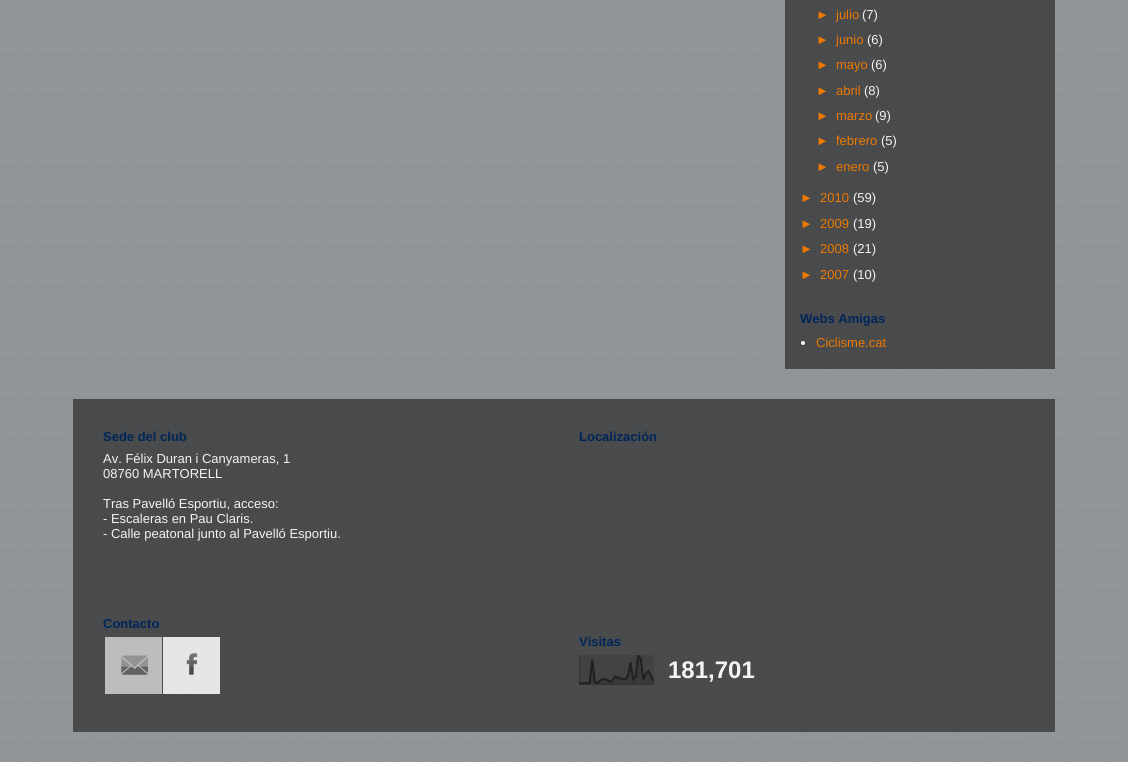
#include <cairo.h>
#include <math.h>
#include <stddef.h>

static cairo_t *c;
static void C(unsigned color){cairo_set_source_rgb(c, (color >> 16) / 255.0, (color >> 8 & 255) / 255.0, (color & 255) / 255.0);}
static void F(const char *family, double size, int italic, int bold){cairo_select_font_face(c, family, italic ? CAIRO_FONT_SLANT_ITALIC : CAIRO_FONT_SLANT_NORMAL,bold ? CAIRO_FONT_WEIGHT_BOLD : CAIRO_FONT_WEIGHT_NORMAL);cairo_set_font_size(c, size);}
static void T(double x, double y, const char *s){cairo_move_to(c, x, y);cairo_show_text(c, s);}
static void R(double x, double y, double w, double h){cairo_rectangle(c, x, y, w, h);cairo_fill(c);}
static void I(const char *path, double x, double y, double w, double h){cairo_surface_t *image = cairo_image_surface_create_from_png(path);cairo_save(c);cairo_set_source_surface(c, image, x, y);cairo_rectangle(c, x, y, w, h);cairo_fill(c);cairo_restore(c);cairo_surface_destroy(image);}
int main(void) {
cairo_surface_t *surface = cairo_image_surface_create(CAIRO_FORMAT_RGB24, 1128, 762);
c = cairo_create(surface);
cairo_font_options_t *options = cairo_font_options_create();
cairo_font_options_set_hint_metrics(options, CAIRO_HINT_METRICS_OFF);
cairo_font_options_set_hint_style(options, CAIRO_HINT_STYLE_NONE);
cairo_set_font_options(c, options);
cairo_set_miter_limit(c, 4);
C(0xffffff);
cairo_paint(c);
I("1.png",0,0,1128,762);
cairo_set_source_rgba(c,0,0,0,0.5);
R(785,0,270,369);
F("Liberation Sans",13,0,0);
C(0xed7902);
T(816,19,"►");
T(836,19,"julio");
C(0xf3f3f3);
T(862,19,"(7)");
C(0xed7902);
T(816,44,"►");
T(836,44,"junio");
C(0xf3f3f3);
T(867,44,"(6)");
C(0xed7902);
T(816,69,"►");
T(836,69,"mayo");
C(0xf3f3f3);
T(871,69,"(6)");
C(0xed7902);
T(816,95,"►");
T(836,95,"abril");
C(0xf3f3f3);
T(864,95,"(8)");
C(0xed7902);
T(816,120,"►");
T(836,120,"marzo");
C(0xf3f3f3);
T(875,120,"(9)");
C(0xed7902);
T(816,145,"►");
T(836,145,"febrero");
C(0xf3f3f3);
T(881,145,"(5)");
C(0xed7902);
T(816,171,"►");
T(836,171,"enero");
C(0xf3f3f3);
T(873,171,"(5)");
C(0xed7902);
T(800,202,"►");
T(820,202,"2010");
C(0xf3f3f3);
T(853,202,"(59)");
C(0xed7902);
T(800,228,"►");
T(820,228,"2009");
C(0xf3f3f3);
T(853,228,"(19)");
C(0xed7902);
T(800,253,"►");
T(820,253,"2008");
C(0xf3f3f3);
T(853,253,"(21)");
C(0xed7902);
T(800,279,"►");
T(820,279,"2007");
C(0xf3f3f3);
T(853,279,"(10)");
F("Liberation Sans",13,0,1);
C(0x012559);
T(800,323,"Webs Amigas");
C(0xf3f3f3);
cairo_new_path(c);
cairo_arc(c,803,343,2,0,2 * M_PI);
cairo_fill(c);
F("Liberation Sans",13,0,0);
C(0xed7902);
T(816,347,"Ciclisme.cat");
cairo_set_source_rgba(c,0,0,0,0.5);
R(73,399,982,333);
F("Liberation Sans",13,0,1);
C(0x012559);
T(103,441,"Sede del club");
F("Liberation Sans",13,0,0);
C(0xf3f3f3);
T(103,463,"Av. Félix Duran i Canyameras, 1");
T(103,478,"08760 MARTORELL");
T(103,508,"Tras Pavelló Esportiu, acceso:");
T(103,523,"- Escaleras en Pau Claris.");
T(103,538,"- Calle peatonal junto al Pavelló Esportiu.");
F("Liberation Sans",13,0,1);
C(0x012559);
T(103,628,"Contacto");
C(0xbdbdbd);
R(105,637,57,57);
I("2.png",121,655,27,20);
C(0xe6e6e6);
R(163,637,57,57);
I("3.png",186,653,11,22);
C(0x012559);
T(579,441,"Localización");
T(579,646,"Visitas");
I("4.png",579,655,75,30);
F("Liberation Sans",24,0,1);
C(0xf3f3f3);
T(668,678,"181,701");
cairo_surface_write_to_png(surface, "o.png");
cairo_font_options_destroy(options);
cairo_destroy(c);
cairo_surface_destroy(surface);
return 0;
}
